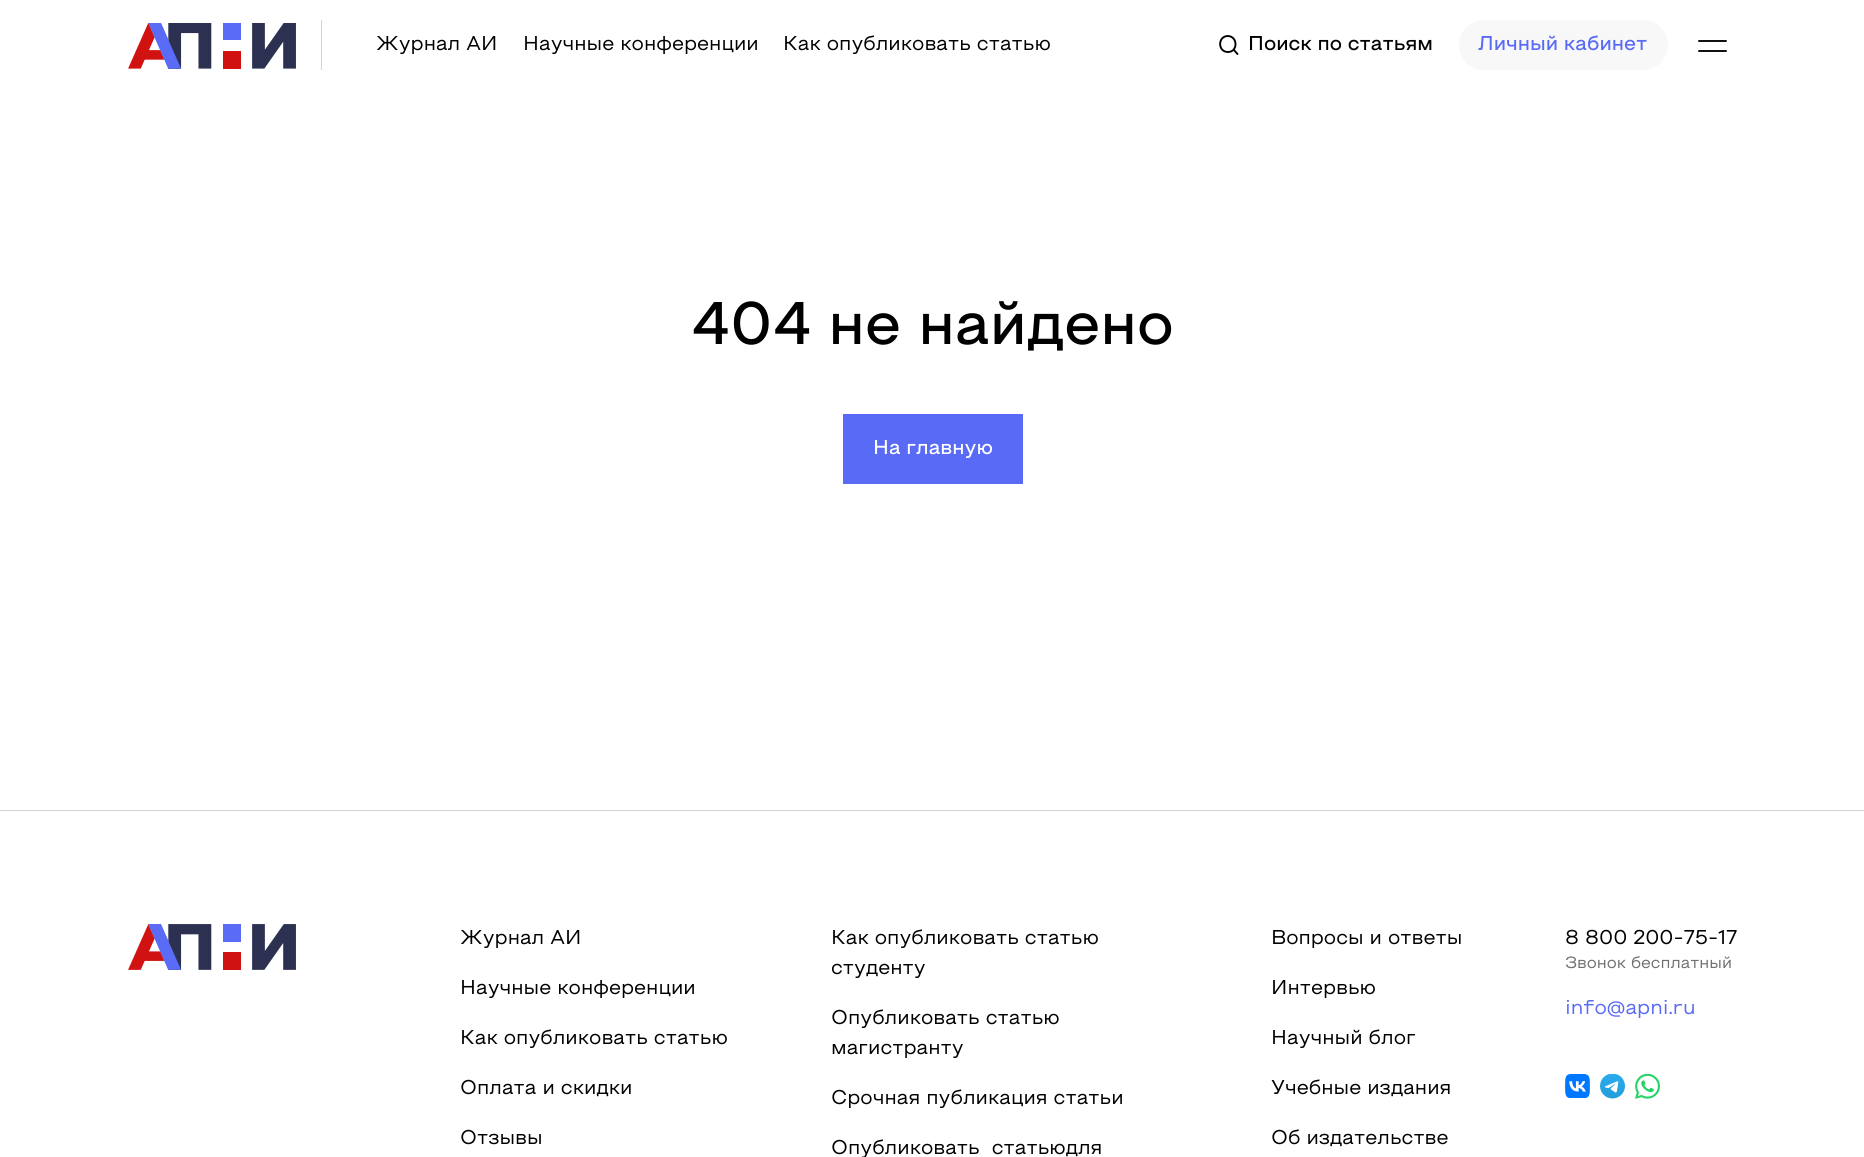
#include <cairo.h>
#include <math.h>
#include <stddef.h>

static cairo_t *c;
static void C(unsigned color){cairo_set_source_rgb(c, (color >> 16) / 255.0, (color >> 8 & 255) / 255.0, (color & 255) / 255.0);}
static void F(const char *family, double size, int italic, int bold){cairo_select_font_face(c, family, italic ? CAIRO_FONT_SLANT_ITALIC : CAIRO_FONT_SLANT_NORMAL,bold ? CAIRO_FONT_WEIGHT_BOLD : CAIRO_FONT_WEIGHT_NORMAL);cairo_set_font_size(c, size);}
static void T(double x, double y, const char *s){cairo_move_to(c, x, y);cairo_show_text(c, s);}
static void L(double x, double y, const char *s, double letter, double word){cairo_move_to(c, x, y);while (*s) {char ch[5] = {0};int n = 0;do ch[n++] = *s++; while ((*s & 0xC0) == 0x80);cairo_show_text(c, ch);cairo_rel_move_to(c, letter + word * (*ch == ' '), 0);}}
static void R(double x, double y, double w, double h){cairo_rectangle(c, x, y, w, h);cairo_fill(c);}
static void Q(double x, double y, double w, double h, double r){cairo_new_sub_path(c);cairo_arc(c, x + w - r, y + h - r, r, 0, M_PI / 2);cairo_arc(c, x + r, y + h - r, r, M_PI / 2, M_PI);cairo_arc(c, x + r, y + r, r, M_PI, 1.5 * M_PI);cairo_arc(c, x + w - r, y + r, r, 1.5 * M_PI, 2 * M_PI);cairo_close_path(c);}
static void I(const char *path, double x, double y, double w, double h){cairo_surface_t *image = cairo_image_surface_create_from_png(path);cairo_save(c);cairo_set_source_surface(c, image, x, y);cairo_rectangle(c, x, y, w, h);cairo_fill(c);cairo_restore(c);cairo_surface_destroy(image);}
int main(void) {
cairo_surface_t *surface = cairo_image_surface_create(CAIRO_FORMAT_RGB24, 1864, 1157);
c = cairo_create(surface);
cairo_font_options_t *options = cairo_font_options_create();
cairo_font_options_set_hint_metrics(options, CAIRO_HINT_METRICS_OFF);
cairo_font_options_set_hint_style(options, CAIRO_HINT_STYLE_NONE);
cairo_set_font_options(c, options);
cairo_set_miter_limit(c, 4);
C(0xffffff);
cairo_paint(c);
I("1.png",128,23,168,46);
C(0xd3d3d3);
R(321,20,1,50);
F("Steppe",20,0,0);
C(0x000000);
T(376,50,"Журнал АИ");
T(523,50,"Научные конференции");
T(783,50,"Как опубликовать статью");
cairo_new_path(c);
cairo_move_to(c,1228,52);
cairo_curve_to(c,1238,52,1238,36.5,1228,36);
cairo_curve_to(c,1217.5,36,1217.5,52,1228,52);
cairo_close_path(c);
cairo_move_to(c,1237.5,54);
cairo_line_to(c,1233.5,49.5);
cairo_set_line_width(c,1.9);
cairo_set_line_cap(c,CAIRO_LINE_CAP_ROUND);
cairo_set_line_join(c,CAIRO_LINE_JOIN_ROUND);
cairo_stroke(c);
F("Steppe Medium",20,0,0);
T(1248,50,"Поиск по статьям");
C(0xf8f8f8);
Q(1459,20,209,50,25);
cairo_fill(c);
C(0x596bf6);
T(1478,50,"Личный кабинет");
cairo_new_path(c);
cairo_move_to(c,1726,41);
cairo_line_to(c,1699,41);
cairo_move_to(c,1726,51);
cairo_line_to(c,1699,51);
C(0x000000);
cairo_set_line_join(c,CAIRO_LINE_JOIN_MITER);
cairo_stroke(c);
F("Steppe Medium",60,0,0);
T(691,344,"404 не найдено");
C(0x596bf6);
R(843,414,180,70);
F("Steppe Medium",20,0,0);
C(0xffffff);
T(873,454,"На главную");
C(0xd3d3d3);
R(0,810,1864,1);
I("2.png",128,924,168,46);
F("Steppe",20,0,0);
C(0x000000);
T(460,944,"Журнал АИ");
T(460,994,"Научные конференции");
T(460,1044,"Как опубликовать статью");
T(460,1094,"Оплата и скидки");
T(460,1144,"Отзывы");
T(831,944,"Как опубликовать статью");
T(831,974,"студенту");
T(831,1024,"Опубликовать статью");
T(831,1054,"магистранту");
T(831,1104,"Срочная публикация статьи");
L(831,1154,"Опубликовать статьюдля",0,6);
T(1271,944,"Вопросы и ответы");
T(1271,994,"Интервью");
T(1271,1044,"Научный блог");
T(1271,1094,"Учебные издания");
T(1271,1144,"Об издательстве");
T(1565,944,"8 800 200-75-17");
F("Steppe",16.25,0,0);
C(0x707070);
T(1565,968,"Звонок бесплатный");
F("Steppe",20,0,0);
C(0x596bf6);
T(1565,1014,"info@apni.ru");
I("3.png",1565,1074,25,24);
I("4.png",1600,1074,25,25);
I("5.png",1635,1074,25,25);
cairo_surface_write_to_png(surface, "o.png");
cairo_font_options_destroy(options);
cairo_destroy(c);
cairo_surface_destroy(surface);
return 0;
}
